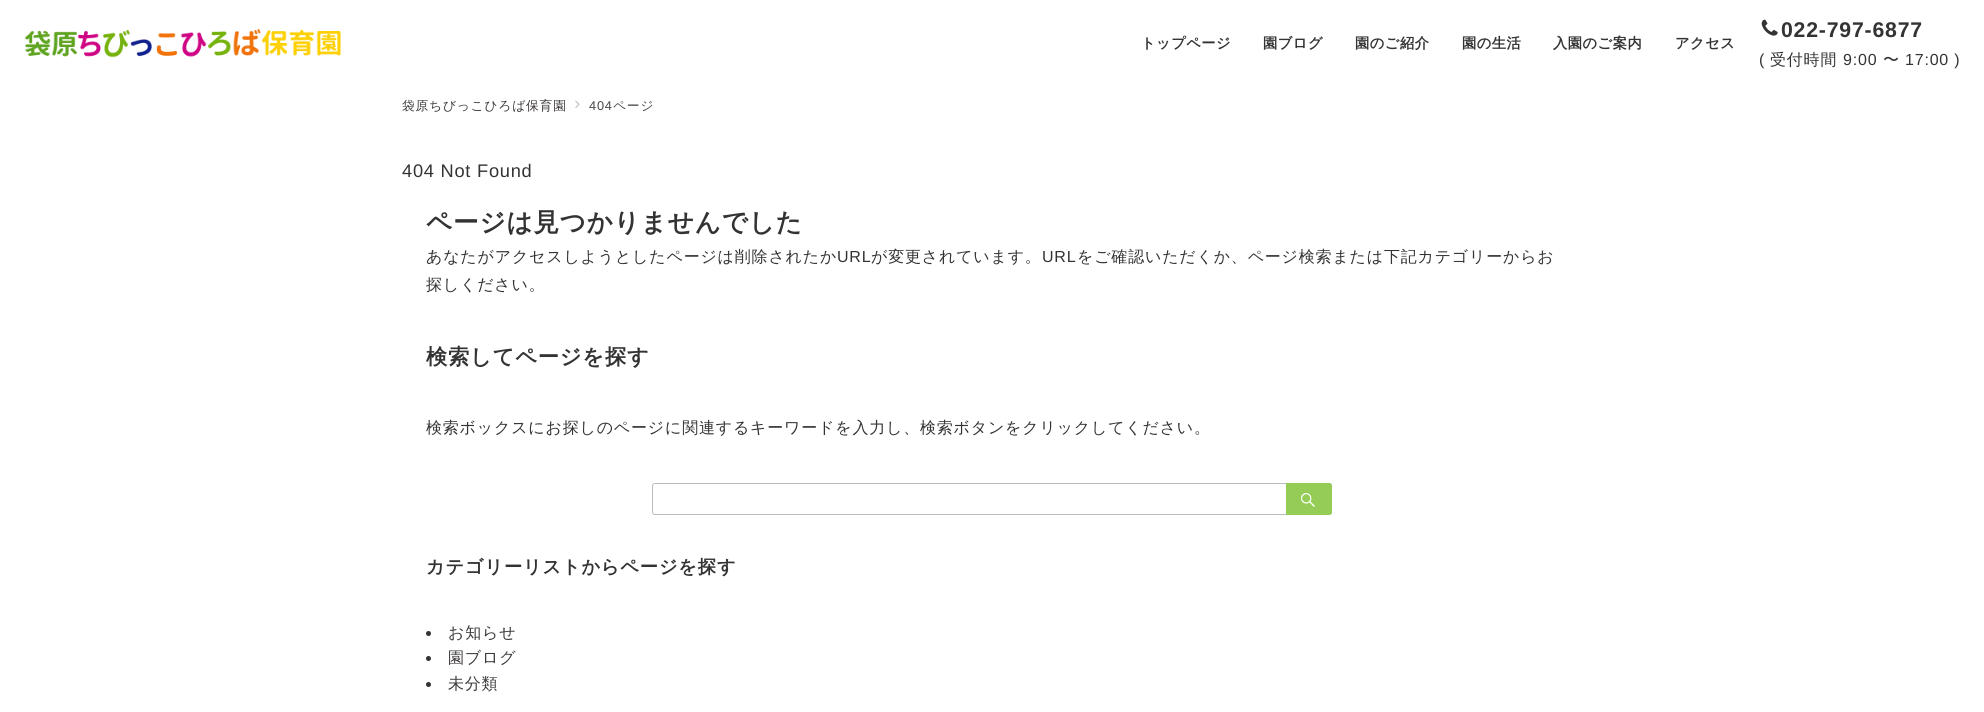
#include <cairo.h>
#include <math.h>
#include <stddef.h>

static cairo_t *c;
static void C(unsigned color){cairo_set_source_rgb(c, (color >> 16) / 255.0, (color >> 8 & 255) / 255.0, (color & 255) / 255.0);}
static void F(const char *family, double size, int italic, int bold){cairo_select_font_face(c, family, italic ? CAIRO_FONT_SLANT_ITALIC : CAIRO_FONT_SLANT_NORMAL,bold ? CAIRO_FONT_WEIGHT_BOLD : CAIRO_FONT_WEIGHT_NORMAL);cairo_set_font_size(c, size);}
static void L(double x, double y, const char *s, double letter, double word){cairo_move_to(c, x, y);while (*s) {char ch[5] = {0};int n = 0;do ch[n++] = *s++; while ((*s & 0xC0) == 0x80);cairo_show_text(c, ch);cairo_rel_move_to(c, letter + word * (*ch == ' '), 0);}}
static void Q(double x, double y, double w, double h, double r){cairo_new_sub_path(c);cairo_arc(c, x + w - r, y + h - r, r, 0, M_PI / 2);cairo_arc(c, x + r, y + h - r, r, M_PI / 2, M_PI);cairo_arc(c, x + r, y + r, r, M_PI, 1.5 * M_PI);cairo_arc(c, x + w - r, y + r, r, 1.5 * M_PI, 2 * M_PI);cairo_close_path(c);}
static void I(const char *path, double x, double y, double w, double h){cairo_surface_t *image = cairo_image_surface_create_from_png(path);cairo_save(c);cairo_set_source_surface(c, image, x, y);cairo_rectangle(c, x, y, w, h);cairo_fill(c);cairo_restore(c);cairo_surface_destroy(image);}
int main(void) {
cairo_surface_t *surface = cairo_image_surface_create(CAIRO_FORMAT_RGB24, 1984, 712);
c = cairo_create(surface);
cairo_font_options_t *options = cairo_font_options_create();
cairo_font_options_set_hint_metrics(options, CAIRO_HINT_METRICS_OFF);
cairo_font_options_set_hint_style(options, CAIRO_HINT_STYLE_NONE);
cairo_set_font_options(c, options);
cairo_set_miter_limit(c, 4);
C(0xffffff);
cairo_paint(c);
I("1.png",24,28,317,30);
F("WenQuanYi Zen Hei",14.25,0,1);
C(0x333333);
L(1141,48,"トップページ",.5,0);
L(1263,48,"園ブログ",.5,0);
L(1355,48,"園のご紹介",.5,0);
L(1462,48,"園の生活",.5,0);
L(1553,48,"入園のご案内",.5,0);
L(1675,48,"アクセス",.5,0);
I("2.png",1761,19,17,17);
F("Liberation Sans",21.25,0,1);
L(1781,37,"022-797-6877",.8,0);
F("Liberation Sans",16,0,0);
L(1759,65,"(",.8,0);
F("WenQuanYi Zen Hei Medium",16,0,0);
L(1770,65,"受付時間",.8,0);
F("Liberation Sans",16,0,0);
L(1843,65,"9:00",.8,0);
F("WenQuanYi Zen Hei Medium",16,0,0);
L(1883,65,"〜",.8,0);
F("Liberation Sans",16,0,0);
L(1905,65,"17:00 )",.8,0);
F("WenQuanYi Zen Hei Medium",12.75,0,0);
C(0x3e3a3a);
L(402,110,"袋原ちびっこひろば保育園",.8,0);
I("3.png",575,100,5,8);
F("Liberation Sans",12.75,0,0);
C(0x484848);
L(589,110,"404",.8,0);
F("WenQuanYi Zen Hei Medium",12.75,0,0);
L(613,110,"ページ",.8,0);
F("Liberation Sans",18.25,0,0);
C(0x333333);
L(402,177,"404 Not Found",.75,0);
F("WenQuanYi Zen Hei",25.6,0,1);
L(426,231,"ページは見つかりませんでした",.8,0);
F("WenQuanYi Zen Hei Medium",16,0,0);
L(426,262,"あなたがアクセスしようとしたページは削除されたか",.8,0);
F("Liberation Sans",16,0,0);
L(837,262,"URL",.8,0);
F("WenQuanYi Zen Hei Medium",16,0,0);
L(871,262,"が変更されています。",.8,0);
F("Liberation Sans",16,0,0);
L(1042,262,"URL",.8,0);
F("WenQuanYi Zen Hei Medium",16,0,0);
L(1077,262,"をご確認いただくか、ページ検索または下記カテゴリーからお",.8,0);
L(426,290,"探しください。",.8,0);
F("WenQuanYi Zen Hei",21.25,0,1);
L(426,364,"検索してページを探す",.8,0);
F("WenQuanYi Zen Hei Medium",16,0,0);
L(426,433,"検索ボックスにお探しのページに関連するキーワードを入力し、検索ボタンをクリックしてください。",.8,0);
Q(652.5,483.5,679,31,2.5);
C(0xb8bcc0);
cairo_set_line_width(c,1);
cairo_stroke(c);
C(0x95cc56);
cairo_new_path(c);
cairo_move_to(c,1286.5,483.5);
cairo_line_to(c,1329,483.5);
cairo_curve_to(c,1330.5,483.5,1331.5,484.5,1331.5,486);
cairo_line_to(c,1331.5,512);
cairo_curve_to(c,1331.5,513.5,1330.5,514.5,1329,514.5);
cairo_line_to(c,1286.5,514.5);
cairo_close_path(c);
cairo_fill_preserve(c);
cairo_stroke(c);
I("4.png",1301,493,14,14);
F("WenQuanYi Zen Hei",18.25,0,1);
C(0x333333);
L(426,573,"カテゴリーリストからページを探す",.8,0);
cairo_new_path(c);
cairo_arc(c,428.5,633.5,2.5,0,2 * M_PI);
cairo_fill(c);
F("WenQuanYi Zen Hei Medium",16,0,0);
C(0x3e3a3a);
L(448,638,"お知らせ",.8,0);
C(0x333333);
cairo_new_path(c);
cairo_arc(c,428.5,658.5,2.5,0,2 * M_PI);
cairo_fill(c);
C(0x3e3a3a);
L(448,663,"園ブログ",.8,0);
C(0x333333);
cairo_new_path(c);
cairo_arc(c,428.5,684.5,2.5,0,2 * M_PI);
cairo_fill(c);
C(0x3e3a3a);
L(448,689,"未分類",.8,0);
cairo_surface_write_to_png(surface, "o.png");
cairo_font_options_destroy(options);
cairo_destroy(c);
cairo_surface_destroy(surface);
return 0;
}
